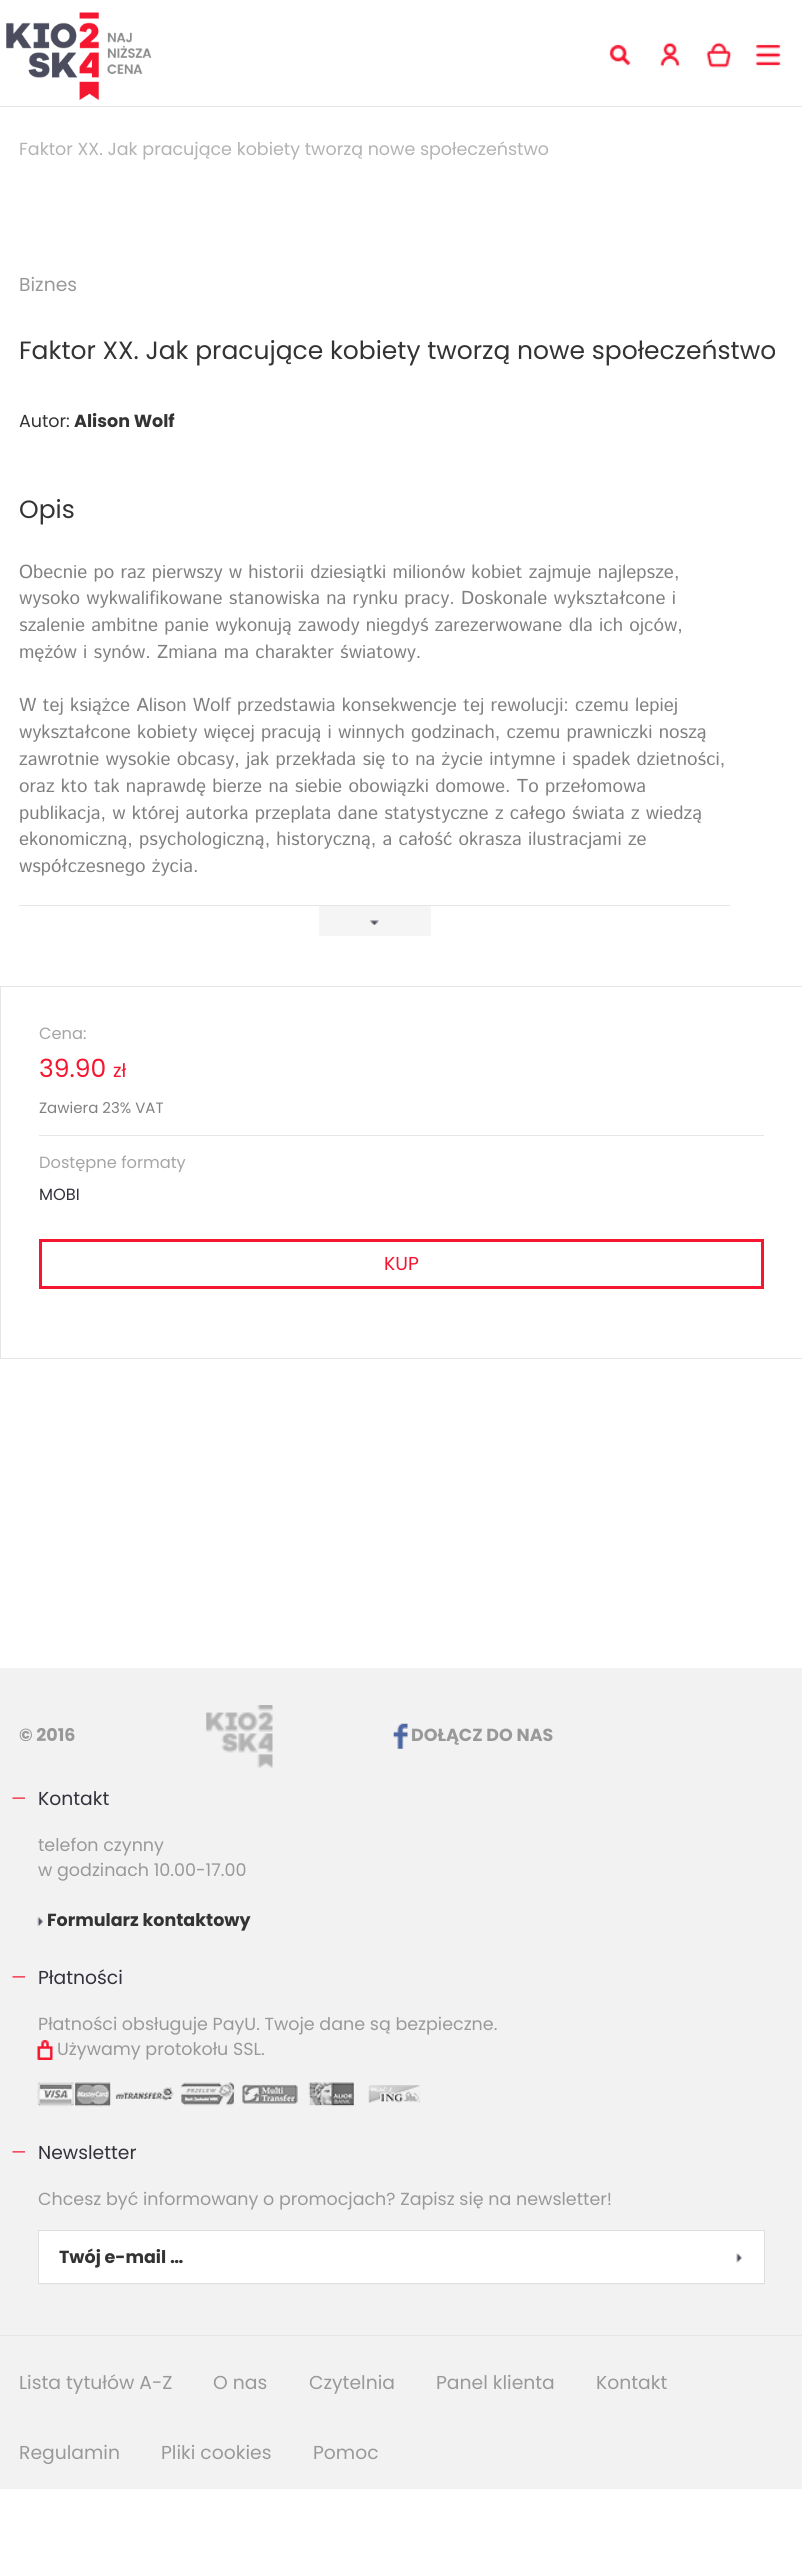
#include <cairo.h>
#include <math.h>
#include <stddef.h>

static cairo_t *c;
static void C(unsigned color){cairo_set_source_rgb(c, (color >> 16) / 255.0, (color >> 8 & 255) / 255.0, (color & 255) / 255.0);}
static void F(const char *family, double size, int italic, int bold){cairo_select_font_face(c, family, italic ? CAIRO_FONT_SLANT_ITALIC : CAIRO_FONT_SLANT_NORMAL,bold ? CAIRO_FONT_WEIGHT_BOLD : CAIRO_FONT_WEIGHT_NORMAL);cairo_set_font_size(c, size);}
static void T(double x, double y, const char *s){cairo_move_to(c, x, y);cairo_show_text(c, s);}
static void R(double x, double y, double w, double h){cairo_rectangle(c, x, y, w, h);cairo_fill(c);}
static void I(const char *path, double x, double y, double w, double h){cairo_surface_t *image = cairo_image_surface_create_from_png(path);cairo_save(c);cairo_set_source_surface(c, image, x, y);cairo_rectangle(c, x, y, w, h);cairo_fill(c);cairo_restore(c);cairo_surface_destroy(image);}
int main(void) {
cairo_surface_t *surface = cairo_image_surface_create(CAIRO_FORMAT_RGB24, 802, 2563);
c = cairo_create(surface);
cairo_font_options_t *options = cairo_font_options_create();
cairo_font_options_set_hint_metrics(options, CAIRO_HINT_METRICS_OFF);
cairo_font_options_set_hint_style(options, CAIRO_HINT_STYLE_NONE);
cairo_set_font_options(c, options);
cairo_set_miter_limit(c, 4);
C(0xffffff);
cairo_paint(c);
C(0xe6e6e6);
R(0,106,802,1);
I("1.png",6,12,146,88);
I("2.png",609,44,22,22);
I("3.png",660,42,21,25);
I("4.png",706,42,26,26);
I("5.png",756,44,25,22);
F("Poppins",17.5,0,0);
C(0xb3b3b3);
T(19,155,"Faktor XX. Jak pracujące kobiety tworzą nowe społeczeństwo");
F("Poppins",18.75,0,0);
C(0x999999);
T(19,291,"Biznes");
F("Poppins",25,0,0);
C(0x333333);
T(19,359,"Faktor XX. Jak pracujące kobiety tworzą nowe społeczeństwo");
F("Poppins",17.5,0,0);
T(19,427,"Autor:");
F("Poppins",17.5,0,1);
T(74,427,"Alison Wolf");
F("Poppins",25,0,0);
T(19,518,"Opis");
C(0xe6e6e6);
R(19,905,711,1);
F("Istok Web",18.75,0,0);
C(0x808080);
T(19,578,"Obecnie po raz pierwszy w historii dziesiątki milionów kobiet zajmuje najlepsze,");
T(19,604,"wysoko wykwalifikowane stanowiska na rynku pracy. Doskonale wykształcone i");
T(19,631,"szalenie ambitne panie wykonują zawody niegdyś zarezerwowane dla ich ojców,");
T(19,658,"mężów i synów. Zmiana ma charakter światowy.");
T(19,711,"W tej książce Alison Wolf przedstawia konsekwencje tej rewolucji: czemu lepiej");
T(19,738,"wykształcone kobiety więcej pracują i winnych godzinach, czemu prawniczki noszą");
T(19,765,"zawrotnie wysokie obcasy, jak przekłada się to na życie intymne i spadek dzietności,");
T(19,792,"oraz kto tak naprawdę bierze na siebie obowiązki domowe. To przełomowa");
T(19,819,"publikacja, w której autorka przeplata dane statystyczne z całego świata z wiedzą");
T(19,845,"ekonomiczną, psychologiczną, historyczną, a całość okrasza ilustracjami ze");
T(19,872,"współczesnego życia.");
C(0xf5f5f5);
R(319,906,112,30);
I("6.png",370,920,9,5);
cairo_rectangle(c,.5,986.5,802,372);
C(0xe6e6e6);
cairo_set_line_width(c,1);
cairo_stroke(c);
F("Poppins",16.25,0,0);
C(0xa5a5a5);
T(39,1039,"Cena:");
F("Poppins",25,0,0);
C(0xf51630);
T(39,1077,"39.90");
F("Poppins",18.75,0,0);
T(113,1077,"zł");
F("Poppins",15,0,0);
C(0x808080);
T(39,1113,"Zawiera 23% VAT");
C(0xe6e6e6);
R(39,1135,725,1);
F("Poppins",16.25,0,0);
C(0xa5a5a5);
T(39,1168,"Dostępne formaty");
C(0x32323c);
T(39,1200,"MOBI");
cairo_rectangle(c,40.5,1240.5,722,47);
C(0xf51630);
cairo_set_line_width(c,3);
cairo_stroke(c);
F("Poppins",18.75,0,0);
T(384,1270,"KUP");
C(0xf2f2f2);
R(0,1668,802,821);
F("Poppins",17.5,0,1);
C(0x999999);
T(19,1741,"© 2016");
I("7.png",206,1705,67,63);
I("8.png",393,1723,15,26);
T(411,1741,"DOŁĄCZ DO NAS");
I("9.png",12,1797,13,2);
F("Poppins",18.75,0,0);
C(0x32323c);
T(38,1805,"Kontakt");
F("Poppins",17.5,0,0);
C(0x999999);
T(38,1851,"telefon czynny");
T(38,1876,"w godzinach 10.00-17.00");
I("10.png",37,1917,7,10);
F("Poppins",17.5,0,1);
C(0x333333);
T(47,1926,"Formularz kontaktowy");
I("11.png",12,1976,13,2);
F("Poppins",18.75,0,0);
C(0x32323c);
T(38,1984,"Płatności");
F("Poppins",17.5,0,0);
C(0x999999);
T(38,2030,"Płatności obsługuje PayU. Twoje dane są bezpieczne.");
I("12.png",37,2040,16,20);
T(57,2055,"Używamy protokołu SSL.");
I("13.png",37,2082,74,25);
I("14.png",115,2087,59,14);
I("15.png",181,2082,54,24);
I("16.png",242,2084,56,20);
I("17.png",308,2082,46,25);
I("18.png",368,2085,52,18);
I("11.png",12,2151,13,2);
F("Poppins",18.75,0,0);
C(0x32323c);
T(38,2159,"Newsletter");
F("Poppins",17.5,0,0);
C(0x999999);
T(38,2205,"Chcesz być informowany o promocjach? Zapisz się na newsletter!");
C(0xffffff);
R(39,2231,676,52);
cairo_rectangle(c,38.5,2230.5,726,53);
C(0xdedee0);
cairo_set_line_width(c,1);
cairo_stroke(c);
F("Poppins",17.5,0,1);
C(0x333333);
T(59,2263,"Twój e-mail …");
C(0xffffff);
R(715,2231,49,52);
I("19.png",736,2253,7,10);
C(0xeeeeee);
R(38,2284,727,1);
C(0xe6e6e6);
R(0,2335,802,1);
F("Poppins",18.75,0,0);
C(0x999999);
T(19,2389,"Lista tytułów A-Z");
T(213,2389,"O nas");
T(309,2389,"Czytelnia");
T(436,2389,"Panel klienta");
T(596,2389,"Kontakt");
T(19,2459,"Regulamin");
T(161,2459,"Pliki cookies");
T(313,2459,"Pomoc");
cairo_surface_write_to_png(surface, "o.png");
cairo_font_options_destroy(options);
cairo_destroy(c);
cairo_surface_destroy(surface);
return 0;
}
